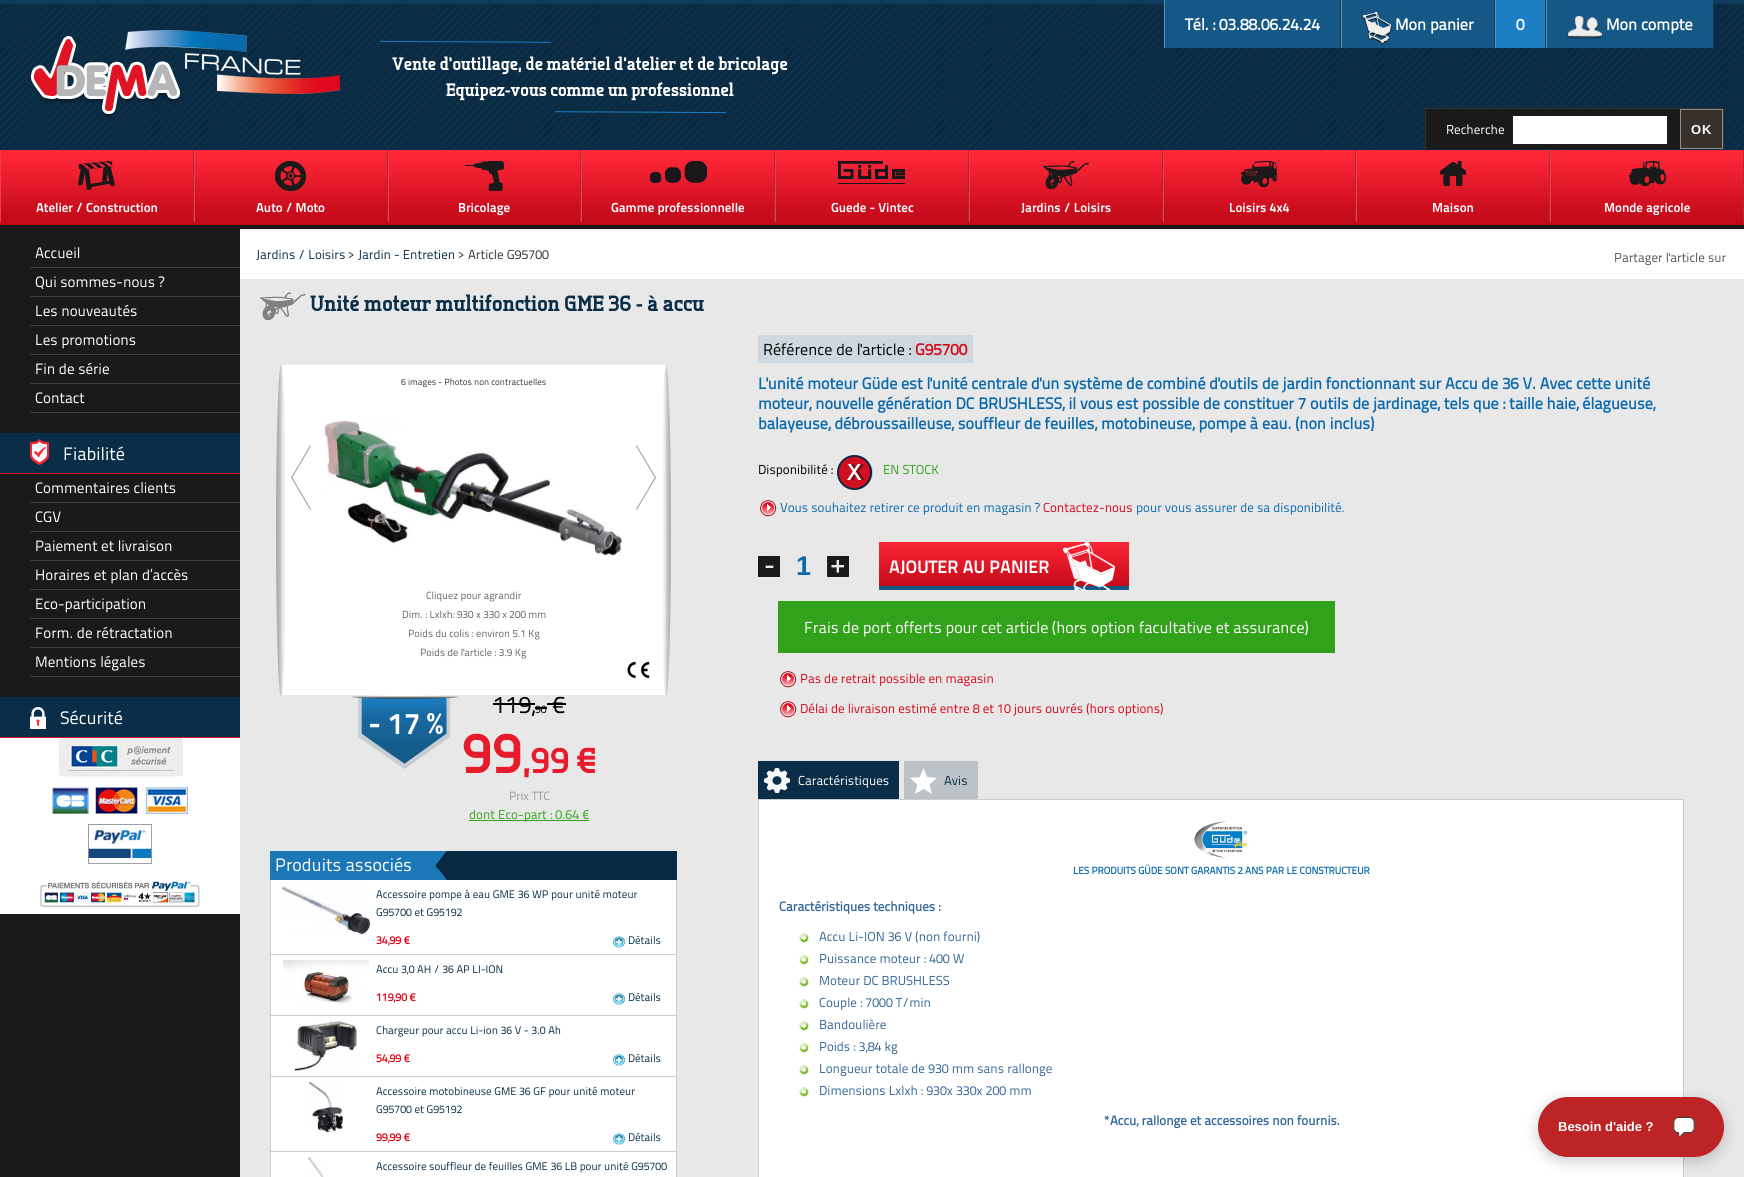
#include <cairo.h>
#include <math.h>
#include <stddef.h>

static cairo_t *c;
static void C(unsigned color){cairo_set_source_rgb(c, (color >> 16) / 255.0, (color >> 8 & 255) / 255.0, (color & 255) / 255.0);}
static void F(const char *family, double size, int italic, int bold){cairo_select_font_face(c, family, italic ? CAIRO_FONT_SLANT_ITALIC : CAIRO_FONT_SLANT_NORMAL,bold ? CAIRO_FONT_WEIGHT_BOLD : CAIRO_FONT_WEIGHT_NORMAL);cairo_set_font_size(c, size);}
static void T(double x, double y, const char *s){cairo_move_to(c, x, y);cairo_show_text(c, s);}
static void L(double x, double y, const char *s, double letter, double word){cairo_move_to(c, x, y);while (*s) {char ch[5] = {0};int n = 0;do ch[n++] = *s++; while ((*s & 0xC0) == 0x80);cairo_show_text(c, ch);cairo_rel_move_to(c, letter + word * (*ch == ' '), 0);}}
static void R(double x, double y, double w, double h){cairo_rectangle(c, x, y, w, h);cairo_fill(c);}
static void Q(double x, double y, double w, double h, double r){cairo_new_sub_path(c);cairo_arc(c, x + w - r, y + h - r, r, 0, M_PI / 2);cairo_arc(c, x + r, y + h - r, r, M_PI / 2, M_PI);cairo_arc(c, x + r, y + r, r, M_PI, 1.5 * M_PI);cairo_arc(c, x + w - r, y + r, r, 1.5 * M_PI, 2 * M_PI);cairo_close_path(c);}
static void S(double x, double y, double w, double h, double r, double blur, double alpha){cairo_push_group_with_content(c, CAIRO_CONTENT_ALPHA);cairo_set_operator(c, CAIRO_OPERATOR_SOURCE);for (int i = 15; i >= -15 && fmin(w, h) + blur * i / 3 > 0; i -= 2) {double e = blur * i / 6;cairo_set_source_rgba(c, 0, 0, 0, alpha * erfc((i - 1) / 8.5) / 2);Q(x - e, y - e, w + 2 * e, h + 2 * e, fmax(0, fmin(r + e + blur * .6, fmin(w, h) / 2 + e)));cairo_fill(c);}cairo_pattern_t *soft = cairo_pop_group(c);cairo_mask(c, soft);cairo_pattern_destroy(soft);}
static void I(const char *path, double x, double y, double w, double h){cairo_surface_t *image = cairo_image_surface_create_from_png(path);cairo_save(c);cairo_set_source_surface(c, image, x, y);cairo_rectangle(c, x, y, w, h);cairo_fill(c);cairo_restore(c);cairo_surface_destroy(image);}
int main(void) {
cairo_surface_t *surface = cairo_image_surface_create(CAIRO_FORMAT_RGB24, 1744, 1177);
c = cairo_create(surface);
cairo_font_options_t *options = cairo_font_options_create();
cairo_font_options_set_hint_metrics(options, CAIRO_HINT_METRICS_OFF);
cairo_font_options_set_hint_style(options, CAIRO_HINT_STYLE_NONE);
cairo_set_font_options(c, options);
cairo_set_miter_limit(c, 4);
C(0xe8e8e8);
cairo_paint(c);
C(0x1a1a1a);
R(0,229,240,948);
I("1.png",0,0,1744,150);
R(0,225,1744,4);
C(0x155886);
R(1165,0,548,48);
C(0x123e5c);
R(1340,0,1,48);
C(0x5a91b7);
R(1164,0,1,48);
F("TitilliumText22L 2",16,0,1);
C(0xffffff);
T(1185,30,"Tél. : 03.88.06.24.24");
C(0x123e5c);
R(1494,0,1,48);
C(0x5a91b7);
R(1341,0,1,48);
I("2.png",1362,12,30,33);
C(0xffffff);
T(1395,30,"Mon panier");
C(0x1d7fc3);
R(1496,0,49,48);
C(0x123e5c);
R(1545,0,1,48);
C(0x5a91b7);
R(1495,0,1,48);
C(0xffffff);
T(1516,30,"0");
C(0x123e5c);
R(1713,0,1,48);
C(0x5a91b7);
R(1546,0,1,48);
I("3.png",1567,16,36,23);
C(0xffffff);
T(1606,30,"Mon compte");
I("4.png",31,30,309,88);
I("5.png",380,40,346,74);
F("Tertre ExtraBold",18,0,0);
T(392,70,"Vente d'outillage, de matériel d'atelier et de bricolage");
T(446,96,"Equipez-vous comme un professionnel");
C(0x1a1a1a);
R(1426,109,254,40);
C(0x38302b);
R(1425,108,299,1);
R(1723,108,1,41);
R(1425,108,1,41);
F("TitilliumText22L",13,0,0);
C(0xffffff);
T(1446,134,"Recherche");
R(1513,116,154,28);
C(0x38302b);
cairo_rectangle(c,1680.5,109.5,42,39);
cairo_fill_preserve(c);
C(0x8d8d8d);
cairo_set_line_width(c,1);
cairo_stroke(c);
F("Liberation Sans",13,0,1);
C(0xffffff);
L(1691,134,"OK",1,0);
I("6.png",0,150,1744,75);
C(0xa92c3a);
R(193,150,1,72);
C(0xf13b49);
R(0,150,1,72);
I("7.png",78,161,37,29);
F("TitilliumText22L",13,0,1);
C(0xffffff);
T(36,212,"Atelier / Construction");
C(0xa92c3a);
R(387,150,1,72);
C(0xf13b49);
R(194,150,1,72);
I("8.png",275,161,31,30);
C(0xffffff);
T(256,212,"Auto / Moto");
C(0xa92c3a);
R(580,150,1,72);
C(0xf13b49);
R(388,150,1,72);
I("9.png",465,161,39,30);
C(0xffffff);
T(458,212,"Bricolage");
C(0xa92c3a);
R(774,150,1,72);
C(0xf13b49);
R(581,150,1,72);
I("10.png",650,161,57,22);
C(0xffffff);
T(611,212,"Gamme professionnelle");
C(0xa92c3a);
R(968,150,1,72);
C(0xf13b49);
R(775,150,1,72);
I("11.png",838,161,67,23);
C(0xffffff);
T(831,212,"Guede - Vintec");
C(0xa92c3a);
R(1162,150,1,72);
C(0xf13b49);
R(969,150,1,72);
I("12.png",1043,161,46,28);
C(0xffffff);
T(1021,212,"Jardins / Loisirs");
C(0xa92c3a);
R(1355,150,1,72);
C(0xf13b49);
R(1163,150,1,72);
I("13.png",1241,161,36,26);
C(0xffffff);
T(1229,212,"Loisirs 4x4");
C(0xa92c3a);
R(1549,150,1,72);
C(0xf13b49);
R(1356,150,1,72);
I("14.png",1440,161,26,25);
C(0xffffff);
T(1432,212,"Maison");
C(0xa92c3a);
R(1743,150,1,72);
C(0xf13b49);
R(1550,150,1,72);
I("15.png",1629,161,37,25);
C(0xffffff);
T(1604,212,"Monde agricole");
C(0x414141);
R(30,267,210,1);
F("TitilliumText22L",15,0,0);
C(0xffffff);
T(35,258,"Accueil");
C(0x414141);
R(30,296,210,1);
C(0xffffff);
T(35,287,"Qui sommes-nous ?");
C(0x414141);
R(30,325,210,1);
C(0xffffff);
T(35,316,"Les nouveautés");
C(0x414141);
R(30,354,210,1);
C(0xffffff);
T(35,345,"Les promotions");
C(0x414141);
R(30,383,210,1);
C(0xffffff);
T(35,374,"Fin de série");
C(0x414141);
R(30,412,210,1);
C(0xffffff);
T(35,403,"Contact");
C(0x0a2e48);
R(0,433,240,40);
C(0xe11425);
R(0,473,240,1);
I("16.png",30,439,19,26);
F("TitilliumText22L",18,0,0);
C(0xffffff);
T(63,460,"Fiabilité");
C(0x414141);
R(30,502,210,1);
F("TitilliumText22L",15,0,0);
C(0xffffff);
T(35,493,"Commentaires clients");
C(0x414141);
R(30,531,210,1);
C(0xffffff);
T(35,522,"CGV");
C(0x414141);
R(30,560,210,1);
C(0xffffff);
T(35,551,"Paiement et livraison");
C(0x414141);
R(30,589,210,1);
C(0xffffff);
T(35,580,"Horaires et plan d’accès");
C(0x414141);
R(30,618,210,1);
C(0xffffff);
T(35,609,"Eco-participation");
C(0x414141);
R(30,647,210,1);
C(0xffffff);
T(35,638,"Form. de rétractation");
C(0x414141);
R(30,676,210,1);
C(0xffffff);
T(35,667,"Mentions légales");
C(0x0a2e48);
R(0,697,240,40);
C(0xe11425);
R(0,737,240,1);
I("17.png",30,707,16,22);
F("TitilliumText22L",18,0,0);
C(0xffffff);
T(60,724,"Sécurité");
R(0,738,240,176);
I("18.png",58,738,125,39);
I("19.png",52,787,136,27);
I("20.png",88,824,64,40);
I("21.png",40,879,160,28);
R(240,229,1504,50);
F("TitilliumText22L",13,0,0);
C(0x0a2e48);
T(256,259,"Jardins / Loisirs");
C(0x333333);
T(348,259,">");
C(0x0a2e48);
T(358,259,"Jardin - Entretien");
C(0x333333);
T(458,259,"> Article G95700");
C(0x555555);
T(1614,262,"Partager l'article sur");
I("22.png",260,292,46,28);
F("Tertre ExtraBold",22,0,0);
C(0x0a2e48);
T(310,311,"Unité moteur multifonction GME 36 - à accu");
C(0xffffff);
R(281,365,385,330);
I("23.png",276,365,10,332);
F("TitilliumText22L",9,0,0);
C(0x333333);
T(401,385,"6 images - Photos non contractuelles");
I("24.png",662,365,9,332);
I("25.png",291,445,20,65);
I("26.png",325,420,297,136);
I("27.png",636,445,20,65);
F("TitilliumText22L",10.4,0,0);
C(0x666666);
T(426,599,"Cliquez pour agrandir");
T(402,618,"Dim. : Lxlxh: 930 x 330 x 200 mm");
T(408,637,"Poids du colis : environ 5.1 Kg");
T(420,656,"Poids de l'article : 3.9 Kg");
I("28.png",627,661,23,18);
I("29.png",351,695,108,74);
F("TitilliumText22L",30,0,1);
C(0xffffff);
T(368,734,"- 17 %");
F("TitilliumText22L",24,0,0);
C(0x000000);
T(493,713,"119,");
R(493,703,42,2);
F("TitilliumText22L",11,0,0);
T(535,713,"90");
R(535,707,12,2);
F("TitilliumText22L",24,0,0);
T(552,713,"€");
R(547,703,19,2);
F("Tertre ExtraBold",56,0,0);
C(0xe61b2b);
T(462,773,"99");
F("Tertre ExtraBold",36,0,0);
T(523,773,",99 €");
F("TitilliumText22L",12,0,0);
C(0x999999);
T(509,800,"Prix TTC");
C(0x33a21b);
R(469,820,120,1);
F("TitilliumText22L",13,0,0);
T(469,819,"dont Eco-part : 0.64 €");
C(0x082a42);
R(454,851,223,29);
C(0x1b77b6);
R(270,851,165,29);
F("TitilliumText22L",18,0,0);
C(0xffffff);
T(275,871,"Produits associés");
I("30.png",435,851,19,29);
R(271,880,405,74);
C(0xcccccc);
R(676,880,1,297);
R(270,954,407,1);
R(270,880,1,75);
I("31.png",282,885,88,50);
F("TitilliumText22L",11,0,0);
C(0x0a2e48);
T(376,898,"Accessoire pompe à eau GME 36 WP pour unité moteur");
T(376,916,"G95700 et G95192");
F("TitilliumText22L 2",11,0,1);
C(0xd90617);
T(376,944,"34,99 €");
I("32.png",612,936,14,12);
F("TitilliumText22L",11,0,0);
C(0x0a2e48);
T(628,944,"Détails");
C(0xffffff);
R(271,955,405,60);
C(0xcccccc);
R(270,1015,407,1);
R(270,955,1,61);
I("33.png",283,960,86,44);
C(0x0a2e48);
T(376,973,"Accu 3,0 AH / 36 AP LI-ION");
F("TitilliumText22L 2",11,0,1);
C(0xd90617);
T(376,1001,"119,90 €");
I("32.png",612,993,14,12);
F("TitilliumText22L",11,0,0);
C(0x0a2e48);
T(628,1001,"Détails");
C(0xffffff);
R(271,1016,405,60);
C(0xcccccc);
R(270,1076,407,1);
R(270,1016,1,61);
I("34.png",295,1021,62,50);
C(0x0a2e48);
T(376,1034,"Chargeur pour accu Li-ion 36 V - 3.0 Ah");
F("TitilliumText22L 2",11,0,1);
C(0xd90617);
T(376,1062,"54,99 €");
I("32.png",612,1054,14,12);
F("TitilliumText22L",11,0,0);
C(0x0a2e48);
T(628,1062,"Détails");
C(0xffffff);
R(271,1077,405,74);
C(0xcccccc);
R(270,1151,407,1);
R(270,1077,1,100);
I("35.png",309,1082,34,50);
C(0x0a2e48);
T(376,1095,"Accessoire motobineuse GME 36 GF pour unité moteur");
T(376,1113,"G95700 et G95192");
F("TitilliumText22L 2",11,0,1);
C(0xd90617);
T(376,1141,"99,99 €");
I("32.png",612,1133,14,12);
F("TitilliumText22L",11,0,0);
C(0x0a2e48);
T(628,1141,"Détails");
C(0xffffff);
R(271,1152,405,25);
I("36.png",308,1157,16,20);
C(0x0a2e48);
T(376,1170,"Accessoire souffleur de feuilles GME 36 LB pour unité G95700");
C(0xcdd8df);
R(758,335,215,28);
F("TitilliumText22L",16,0,0);
C(0x000000);
T(763,355,"Référence de l'article :");
F("TitilliumText22L 2",16,0,1);
C(0xd90617);
T(915,355,"G95700");
C(0x0b6aae);
T(758,389,"L'unité moteur Güde est l'unité centrale d'un système de combiné d'outils de jardin fonctionnant sur Accu de 36 V. Avec cette unité");
T(758,409,"moteur, nouvelle génération DC BRUSHLESS, il vous est possible de constituer 7 outils de jardinage, tels que : taille haie, élagueuse,");
T(758,429,"balayeuse, débroussailleuse, souffleur de feuilles, motobineuse, pompe à eau. (non inclus)");
F("TitilliumText22L",13,0,0);
C(0x000000);
T(758,474,"Disponibilité :");
I("37.png",837,455,36,35);
C(0x33a21b);
T(883,474,"EN STOCK");
I("38.png",760,500,17,17);
C(0x0b6aae);
T(780,512,"Vous souhaitez retirer ce produit en magasin ?");
C(0xd90617);
T(1043,512,"Contactez-nous");
C(0x0b6aae);
T(1136,512,"pour vous assurer de sa disponibilité.");
I("39.png",758,556,22,21);
F("Liberation Sans",27,0,1);
T(796,575,"1");
I("40.png",827,556,22,21);
I("41.png",879,542,250,48);
F("TitilliumText22L",18,0,1);
C(0xffffff);
T(889,573,"AJOUTER AU PANIER");
I("42.png",1063,542,52,49);
C(0x33a21b);
R(778,601,557,52);
F("TitilliumText22L",16,0,0);
C(0xffffff);
T(804,633,"Frais de port offerts pour cet article (hors option facultative et assurance)");
I("38.png",780,671,17,17);
F("TitilliumText22L",13,0,0);
C(0xd90617);
T(800,683,"Pas de retrait possible en magasin");
I("38.png",780,701,17,17);
T(800,713,"Délai de livraison estimé entre 8 et 10 jours ouvrés (hors options)");
C(0x0a2e48);
R(758,761,141,38);
I("43.png",764,768,26,25);
C(0xffffff);
T(798,785,"Caractéristiques");
C(0xbcc3c8);
R(904,761,74,38);
I("44.png",910,768,27,26);
C(0x0a2e48);
T(944,785,"Avis");
C(0xffffff);
cairo_rectangle(c,758.5,799.5,925,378);
cairo_fill_preserve(c);
C(0xcccccc);
cairo_stroke(c);
I("45.png",1194,821,55,37);
F("TitilliumText22L 2",10,0,1);
C(0x0b6aae);
T(1073,874,"LES PRODUITS GÜDE SONT GARANTIS 2 ANS PAR LE CONSTRUCTEUR");
F("TitilliumText22L 2",13,0,1);
C(0x336699);
T(779,911,"Caractéristiques techniques :");
I("46.png",799,933,10,10);
F("TitilliumText22L",13,0,0);
T(819,941,"Accu Li-ION 36 V (non fourni)");
I("46.png",799,955,10,10);
T(819,963,"Puissance moteur : 400 W");
I("46.png",799,977,10,10);
T(819,985,"Moteur DC BRUSHLESS");
I("46.png",799,999,10,10);
T(819,1007,"Couple : 7000 T/min");
I("46.png",799,1021,10,10);
T(819,1029,"Bandoulière");
I("46.png",799,1043,10,10);
T(819,1051,"Poids : 3,84 kg");
I("46.png",799,1065,10,10);
T(819,1073,"Longueur totale de 930 mm sans rallonge");
I("46.png",799,1087,10,10);
T(819,1095,"Dimensions Lxlxh : 930x 330x 200 mm");
F("TitilliumText22L 2",13,0,1);
T(1103,1125,"*Accu, rallonge et accessoires non fournis.");
C(0x000000);
S(1538,1101,186,60,30,7,.2);
C(0xbd2425);
Q(1538,1097,186,60,30);
cairo_fill(c);
F("Liberation Sans",13,0,1);
C(0xffffff);
T(1558,1131,"Besoin d'aide ?");
I("47.png",1673,1117,22,20);
cairo_surface_write_to_png(surface, "o.png");
cairo_font_options_destroy(options);
cairo_destroy(c);
cairo_surface_destroy(surface);
return 0;
}
